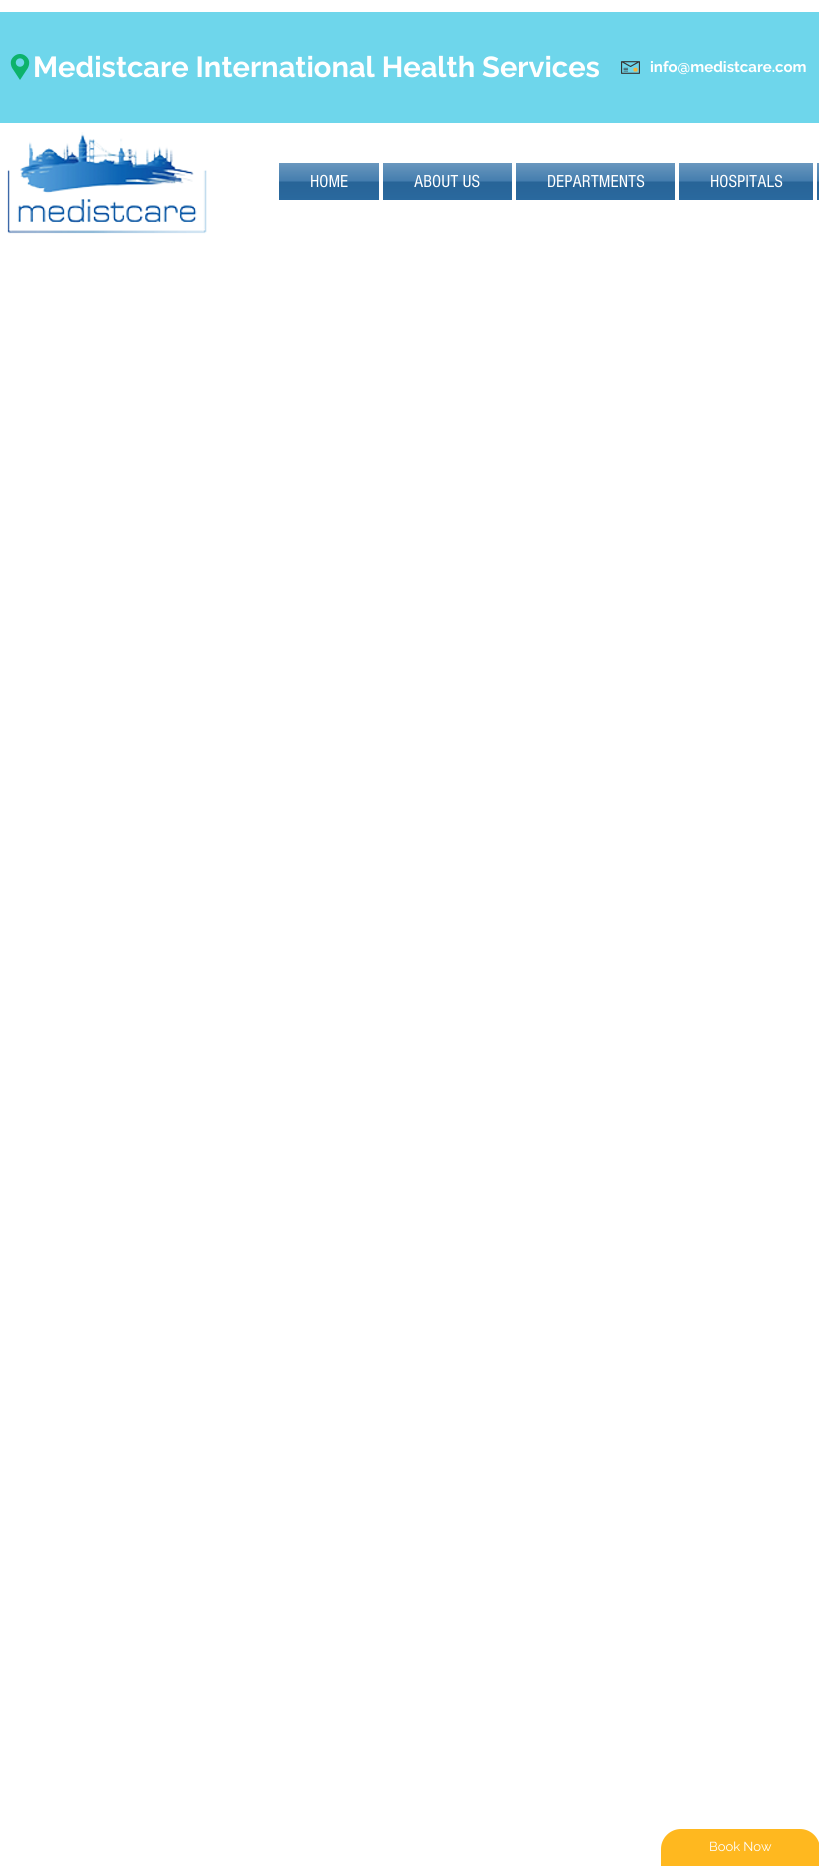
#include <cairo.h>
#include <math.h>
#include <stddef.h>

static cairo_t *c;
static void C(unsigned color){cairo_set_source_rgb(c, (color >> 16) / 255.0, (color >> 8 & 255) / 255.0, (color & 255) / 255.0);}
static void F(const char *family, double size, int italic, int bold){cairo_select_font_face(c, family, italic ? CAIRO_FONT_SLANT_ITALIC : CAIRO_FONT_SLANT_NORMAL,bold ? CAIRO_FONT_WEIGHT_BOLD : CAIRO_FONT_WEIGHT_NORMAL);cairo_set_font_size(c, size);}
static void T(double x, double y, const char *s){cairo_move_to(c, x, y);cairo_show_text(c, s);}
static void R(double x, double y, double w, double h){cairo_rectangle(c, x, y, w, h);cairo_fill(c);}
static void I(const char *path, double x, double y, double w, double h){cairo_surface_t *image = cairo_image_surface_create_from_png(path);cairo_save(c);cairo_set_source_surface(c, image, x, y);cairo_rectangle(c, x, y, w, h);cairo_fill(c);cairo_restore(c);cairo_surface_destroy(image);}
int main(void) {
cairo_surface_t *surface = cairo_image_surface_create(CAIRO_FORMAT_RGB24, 819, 1866);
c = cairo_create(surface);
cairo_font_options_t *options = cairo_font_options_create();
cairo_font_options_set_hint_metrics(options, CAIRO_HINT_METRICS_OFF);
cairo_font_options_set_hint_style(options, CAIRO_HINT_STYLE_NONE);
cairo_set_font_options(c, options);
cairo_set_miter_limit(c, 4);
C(0xffffff);
cairo_paint(c);
C(0x6ed6eb);
R(0,12,819,111);
I("1.png",10,54,20,26);
F("Raleway",29,0,1);
C(0xffffff);
T(33,77,"Medistcare International Health Services");
I("2.png",621,61,19,13);
F("Raleway",15,0,1);
T(650,72,"info@medistcare.com");
I("3.png",7,132,200,102);
C(0x2b6ca3);
R(279,163,100,37);
I("4.png",279,163,100,37);
F("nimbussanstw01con",18,0,0);
C(0xffffff);
T(310,187,"HOME");
C(0x2b6ca3);
R(383,163,129,37);
I("5.png",383,163,129,37);
C(0xffffff);
T(414,187,"ABOUT US");
C(0x2b6ca3);
R(516,163,159,37);
I("6.png",516,163,159,37);
C(0xffffff);
T(547,187,"DEPARTMENTS");
C(0x2b6ca3);
R(679,163,134,37);
I("7.png",679,163,134,37);
C(0xffffff);
T(710,187,"HOSPITALS");
C(0x2b6ca3);
R(817,163,2,37);
I("8.png",817,163,2,37);
C(0xffb81f);
cairo_new_path(c);
cairo_move_to(c,681,1829);
cairo_line_to(c,800,1829);
cairo_curve_to(c,811,1829,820,1838,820,1849);
cairo_line_to(c,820,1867);
cairo_line_to(c,661,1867);
cairo_line_to(c,661,1849);
cairo_curve_to(c,661,1838,670,1829,681,1829);
cairo_close_path(c);
cairo_fill(c);
F("Raleway",13,0,0);
C(0xffffff);
T(709,1851,"Book Now");
cairo_surface_write_to_png(surface, "o.png");
cairo_font_options_destroy(options);
cairo_destroy(c);
cairo_surface_destroy(surface);
return 0;
}
